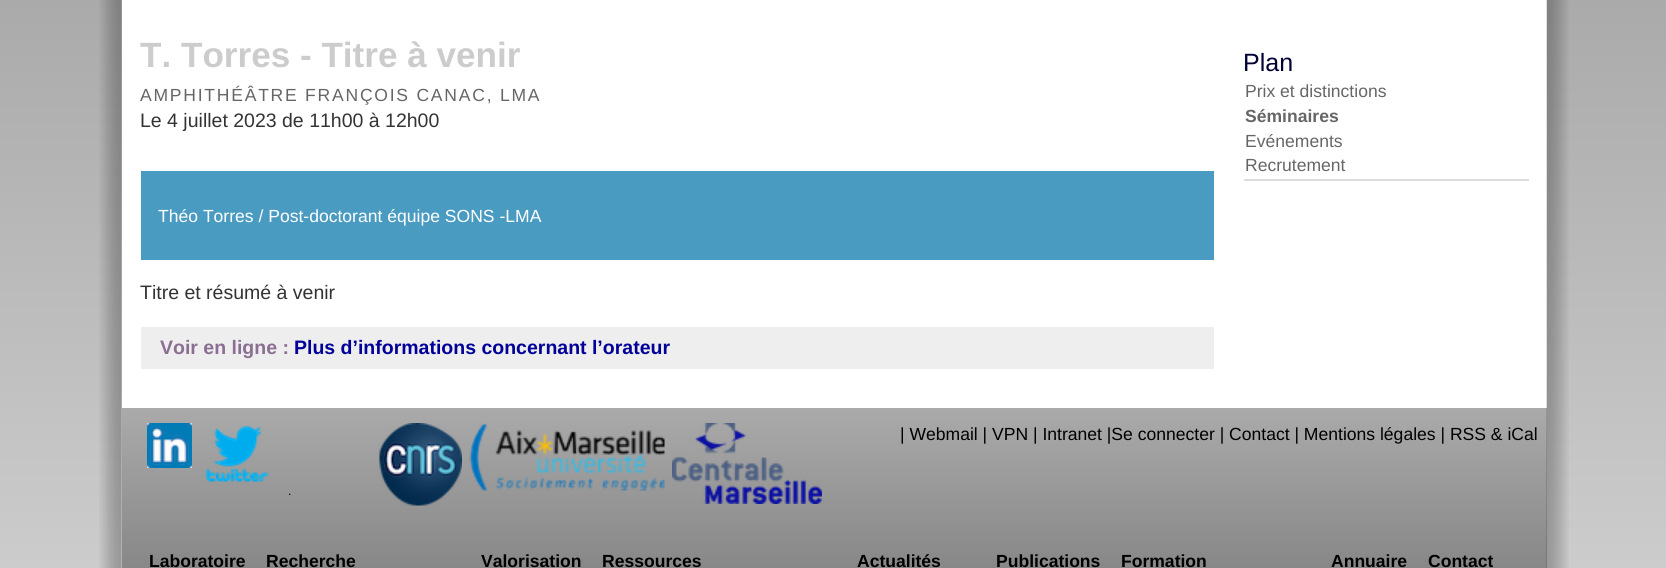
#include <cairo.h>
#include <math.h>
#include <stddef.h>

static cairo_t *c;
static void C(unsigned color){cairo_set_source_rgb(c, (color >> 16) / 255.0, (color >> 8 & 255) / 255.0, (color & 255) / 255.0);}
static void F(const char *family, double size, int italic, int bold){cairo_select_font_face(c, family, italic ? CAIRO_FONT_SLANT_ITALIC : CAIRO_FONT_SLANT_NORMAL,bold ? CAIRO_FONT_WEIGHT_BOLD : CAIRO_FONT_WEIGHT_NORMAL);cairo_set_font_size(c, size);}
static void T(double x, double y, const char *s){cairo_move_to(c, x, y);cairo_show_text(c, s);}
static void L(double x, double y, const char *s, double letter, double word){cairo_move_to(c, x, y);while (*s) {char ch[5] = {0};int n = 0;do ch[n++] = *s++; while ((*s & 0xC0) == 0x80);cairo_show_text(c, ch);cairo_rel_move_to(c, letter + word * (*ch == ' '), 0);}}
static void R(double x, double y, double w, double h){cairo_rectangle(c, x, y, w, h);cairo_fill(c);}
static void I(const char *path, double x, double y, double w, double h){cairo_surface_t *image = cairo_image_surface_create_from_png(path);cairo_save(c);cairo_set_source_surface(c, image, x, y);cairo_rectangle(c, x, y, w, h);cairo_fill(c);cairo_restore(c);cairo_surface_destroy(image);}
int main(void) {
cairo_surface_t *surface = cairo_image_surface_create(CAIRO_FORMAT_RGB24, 1666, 568);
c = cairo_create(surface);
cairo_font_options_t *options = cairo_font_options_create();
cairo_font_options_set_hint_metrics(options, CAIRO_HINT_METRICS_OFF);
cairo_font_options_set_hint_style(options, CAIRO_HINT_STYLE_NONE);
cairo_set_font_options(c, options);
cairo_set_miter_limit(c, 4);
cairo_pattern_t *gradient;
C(0xffffff);
cairo_paint(c);
gradient = cairo_pattern_create_linear(0,0,0,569);
cairo_pattern_add_color_stop_rgba(gradient,0,0.667,0.667,0.667,1);
cairo_pattern_add_color_stop_rgba(gradient,1,0.8,0.8,0.8,1);
cairo_set_source(c,gradient);
cairo_pattern_destroy(gradient);
R(0,0,1666,568);
C(0xffffff);
R(122,0,1425,408);
I("1.png",99,0,23,568);
F("Liberation Sans",35.1,0,1);
C(0xcccccc);
T(140,67,"T. Torres - Titre à venir");
F("Liberation Sans",17.55,0,0);
C(0x666666);
L(140,101,"AMPHITHÉÂTRE FRANÇOIS CANAC, LMA",1.75,0);
F("Liberation Sans",19.5,0,0);
C(0x333333);
T(140,127,"Le 4 juillet 2023 de 11h00 à 12h00");
C(0x4a9bc1);
R(141,171,1073,89);
F("Liberation Sans",17.55,0,0);
C(0xffffff);
T(158,222,"Théo Torres / Post-doctorant équipe SONS -LMA");
F("Liberation Sans",19.5,0,0);
C(0x333333);
T(140,299,"Titre et résumé à venir");
C(0xeeeeee);
R(141,327,1073,42);
F("Liberation Sans",19.5,0,1);
C(0x8b6f92);
T(160,354,"Voir en ligne :");
C(0x000099);
T(294,354,"Plus d’informations concernant l’orateur");
F("Liberation Sans",25,0,0);
C(0x000033);
T(1243,71,"Plan");
C(0xdddddd);
R(1244,179,285,2);
F("Liberation Sans",17.55,0,0);
C(0x666666);
T(1245,97,"Prix et distinctions");
F("Liberation Sans",17.55,0,1);
T(1245,122,"Séminaires");
F("Liberation Sans",17.55,0,0);
T(1245,147,"Evénements");
T(1245,171,"Recrutement");
gradient = cairo_pattern_create_linear(834,408,834,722);
cairo_pattern_add_color_stop_rgba(gradient,0,0.667,0.667,0.667,1);
cairo_pattern_add_color_stop_rgba(gradient,1,0.4,0.4,0.4,1);
cairo_set_source(c,gradient);
cairo_pattern_destroy(gradient);
R(122,408,1425,160);
I("2.png",1546,0,23,568);
C(0x000000);
T(900,440,"| Webmail | VPN | Intranet |Se connecter | Contact | Mentions légales | RSS & iCal");
I("3.png",147,423,45,45);
I("4.png",205,425,64,58);
F("Liberation Sans",12,0,0);
T(288,495,".");
I("5.png",379,423,83,83);
I("6.png",469,423,196,68);
I("7.png",672,423,150,81);
F("Liberation Sans",17.55,0,1);
T(149,567,"Laboratoire");
T(266,567,"Recherche");
T(481,567,"Valorisation");
T(602,567,"Ressources");
T(857,567,"Actualités");
T(996,567,"Publications");
T(1121,567,"Formation");
T(1331,567,"Annuaire");
T(1428,567,"Contact");
cairo_surface_write_to_png(surface, "o.png");
cairo_font_options_destroy(options);
cairo_destroy(c);
cairo_surface_destroy(surface);
return 0;
}
